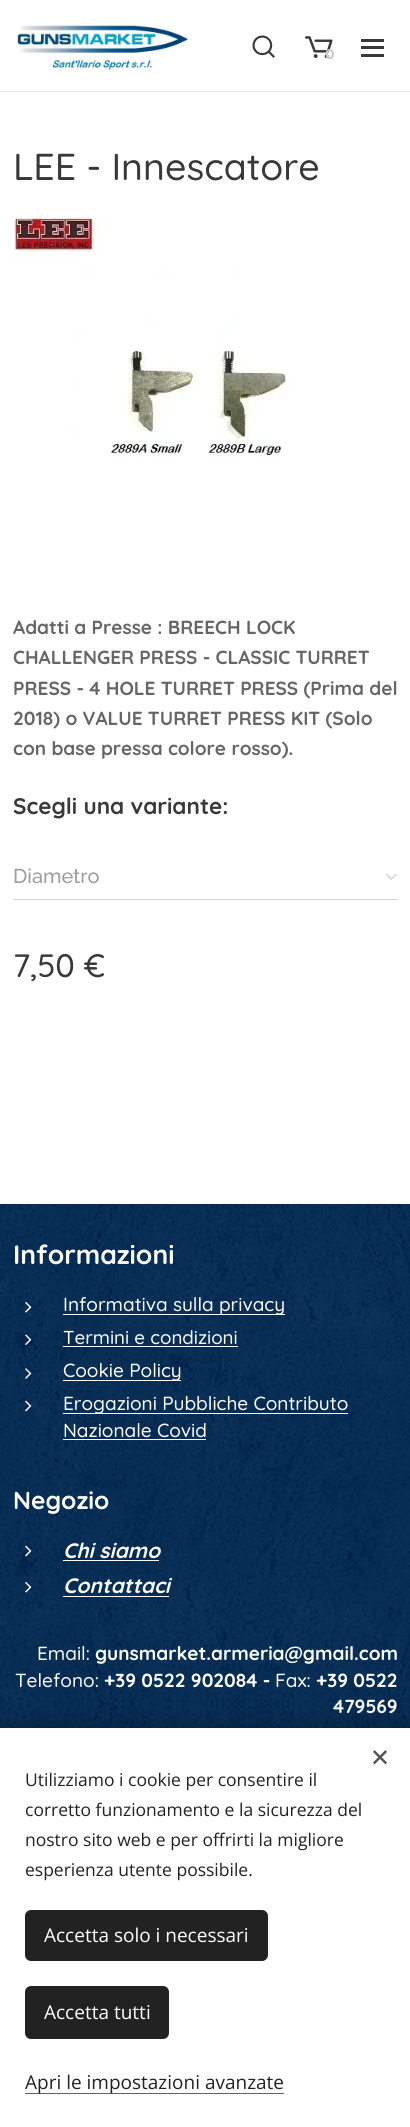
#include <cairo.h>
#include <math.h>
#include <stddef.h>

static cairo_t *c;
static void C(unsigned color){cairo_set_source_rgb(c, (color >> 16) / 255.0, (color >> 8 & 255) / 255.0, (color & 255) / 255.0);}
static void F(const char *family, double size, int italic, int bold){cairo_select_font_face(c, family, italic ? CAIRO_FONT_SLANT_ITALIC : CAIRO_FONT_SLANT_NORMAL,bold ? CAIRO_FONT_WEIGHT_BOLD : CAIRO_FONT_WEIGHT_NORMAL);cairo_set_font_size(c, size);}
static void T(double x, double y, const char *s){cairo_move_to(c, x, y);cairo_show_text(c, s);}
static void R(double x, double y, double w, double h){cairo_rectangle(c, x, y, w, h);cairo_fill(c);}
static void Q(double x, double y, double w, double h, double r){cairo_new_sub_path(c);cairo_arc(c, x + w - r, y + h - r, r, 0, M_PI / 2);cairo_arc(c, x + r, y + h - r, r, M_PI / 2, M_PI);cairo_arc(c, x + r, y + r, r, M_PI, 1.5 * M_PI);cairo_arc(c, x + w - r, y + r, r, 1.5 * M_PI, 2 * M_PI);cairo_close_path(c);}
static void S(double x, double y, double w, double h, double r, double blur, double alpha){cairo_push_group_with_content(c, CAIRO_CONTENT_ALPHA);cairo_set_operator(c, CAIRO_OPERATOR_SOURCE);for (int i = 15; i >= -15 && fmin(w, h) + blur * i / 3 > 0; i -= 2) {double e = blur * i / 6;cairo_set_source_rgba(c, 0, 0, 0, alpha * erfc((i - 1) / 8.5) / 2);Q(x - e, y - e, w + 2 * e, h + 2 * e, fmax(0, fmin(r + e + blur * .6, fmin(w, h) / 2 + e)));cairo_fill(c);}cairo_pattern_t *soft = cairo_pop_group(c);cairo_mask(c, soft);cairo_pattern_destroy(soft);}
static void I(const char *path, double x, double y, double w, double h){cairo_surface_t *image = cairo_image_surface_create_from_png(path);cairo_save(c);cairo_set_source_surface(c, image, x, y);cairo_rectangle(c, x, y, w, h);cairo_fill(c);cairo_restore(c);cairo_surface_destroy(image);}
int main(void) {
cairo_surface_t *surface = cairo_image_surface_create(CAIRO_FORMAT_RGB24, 410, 2127);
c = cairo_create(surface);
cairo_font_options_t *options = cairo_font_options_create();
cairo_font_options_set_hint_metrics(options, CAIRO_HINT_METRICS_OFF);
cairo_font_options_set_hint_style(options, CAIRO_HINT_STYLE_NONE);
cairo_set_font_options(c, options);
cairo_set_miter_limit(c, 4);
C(0xffffff);
cairo_paint(c);
I("1.png",17,24,171,46);
I("2.png",252,35,23,23);
I("3.png",305,36,28,22);
F("Montserrat",14,0,1);
C(0xcacaca);
T(325,59,"0");
C(0x393939);
R(361,46,23,3);
R(361,39,23,3);
R(361,54,23,3);
C(0xe8e8e8);
R(0,91,410,1);
F("Quicksand Medium",37.5,0,0);
C(0x393939);
T(13,180,"LEE - Innescatore");
I("4.png",12,215,279,242);
F("Quicksand",19,0,1);
C(0x666666);
T(13,634,"Adatti a Presse : BREECH LOCK");
T(13,664,"CHALLENGER PRESS - CLASSIC TURRET");
T(13,695,"PRESS - 4 HOLE TURRET PRESS (Prima del");
T(13,725,"2018) o VALUE TURRET PRESS KIT (Solo");
T(13,755,"con base pressa colore rosso).");
F("Quicksand",22.5,0,1);
C(0x393939);
T(13,814,"Scegli una variante:");
F("Raleway Medium",20,0,0);
C(0x9d9d9d);
T(13,883,"Diametro");
I("5.png",386,873,11,7);
C(0xd4d4d4);
R(13,899,385,1);
F("Quicksand Medium",32.5,0,0);
C(0x393939);
T(13,977,"7,50 €");
I("6.png",0,1204,410,524);
F("Quicksand",26.5,0,1);
C(0xffffff);
T(13,1264,"Informazioni");
I("7.png",25,1302,7,11);
R(63,1314,222,1);
F("Quicksand Medium",19,0,0);
T(63,1311,"Informativa sulla privacy");
I("8.png",25,1334,7,11);
F("Quicksand Medium",18.75,0,0);
T(63,1344,"Termini e condizioni");
R(63,1346,175,1);
I("9.png",25,1368,7,11);
R(63,1380,118,1);
F("Quicksand Medium",19,0,0);
T(63,1377,"Cookie Policy");
I("10.png",25,1400,7,12);
R(63,1413,285,1);
T(63,1410,"Erogazioni Pubbliche Contributo");
T(63,1437,"Nazionale Covid");
R(63,1439,143,1);
F("Quicksand",24.5,0,1);
T(13,1509,"Negozio");
I("11.png",25,1545,7,12);
F("Quicksand",21,1,1);
T(63,1558,"Chi siamo");
R(63,1560,96,1);
I("12.png",25,1582,7,11);
T(63,1593,"Contattaci");
R(63,1596,106,1);
F("Quicksand Medium",19,0,0);
T(37,1660,"Email:");
F("Quicksand",19,0,1);
T(95,1660,"gunsmarket.armeria@gmail.com");
F("Quicksand Medium",19,0,0);
T(15,1687,"Telefono:");
F("Quicksand",19,0,1);
T(104,1687,"+39 0522 902084 -");
F("Quicksand Medium",19,0,0);
T(275,1687,"Fax:");
F("Quicksand",19,0,1);
T(316,1687,"+39 0522");
T(333,1713,"479569");
C(0x000000);
S(0,1728,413,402,0,15.5,.33);
C(0xffffff);
R(0,1728,410,399);
C(0x555555);
cairo_new_path(c);
cairo_move_to(c,373,1762.5);
cairo_line_to(c,385.5,1750);
cairo_line_to(c,387,1752);
cairo_line_to(c,374.5,1764.5);
cairo_close_path(c);
cairo_fill(c);
cairo_new_path(c);
cairo_move_to(c,374.5,1750);
cairo_line_to(c,387,1762.5);
cairo_line_to(c,385.5,1764.5);
cairo_line_to(c,373,1752);
cairo_close_path(c);
cairo_fill(c);
F("Open Sans",17.5,0,0);
C(0x222222);
T(25,1786,"Utilizziamo i cookie per consentire il");
T(25,1816,"corretto funzionamento e la sicurezza del");
T(25,1846,"nostro sito web e per offrirti la migliore");
T(25,1876,"esperienza utente possibile.");
Q(25,1910,243,51,6);
cairo_fill(c);
F("Open Sans",19,0,0);
C(0xffffff);
T(44,1942,"Accetta solo i necessari");
C(0x222222);
Q(25,1986,144,53,6);
cairo_fill(c);
C(0xffffff);
T(44,2019,"Accetta tutti");
C(0x646464);
R(25,2093,259,1);
C(0x222222);
T(25,2089,"Apri le impostazioni avanzate");
cairo_surface_write_to_png(surface, "o.png");
cairo_font_options_destroy(options);
cairo_destroy(c);
cairo_surface_destroy(surface);
return 0;
}
